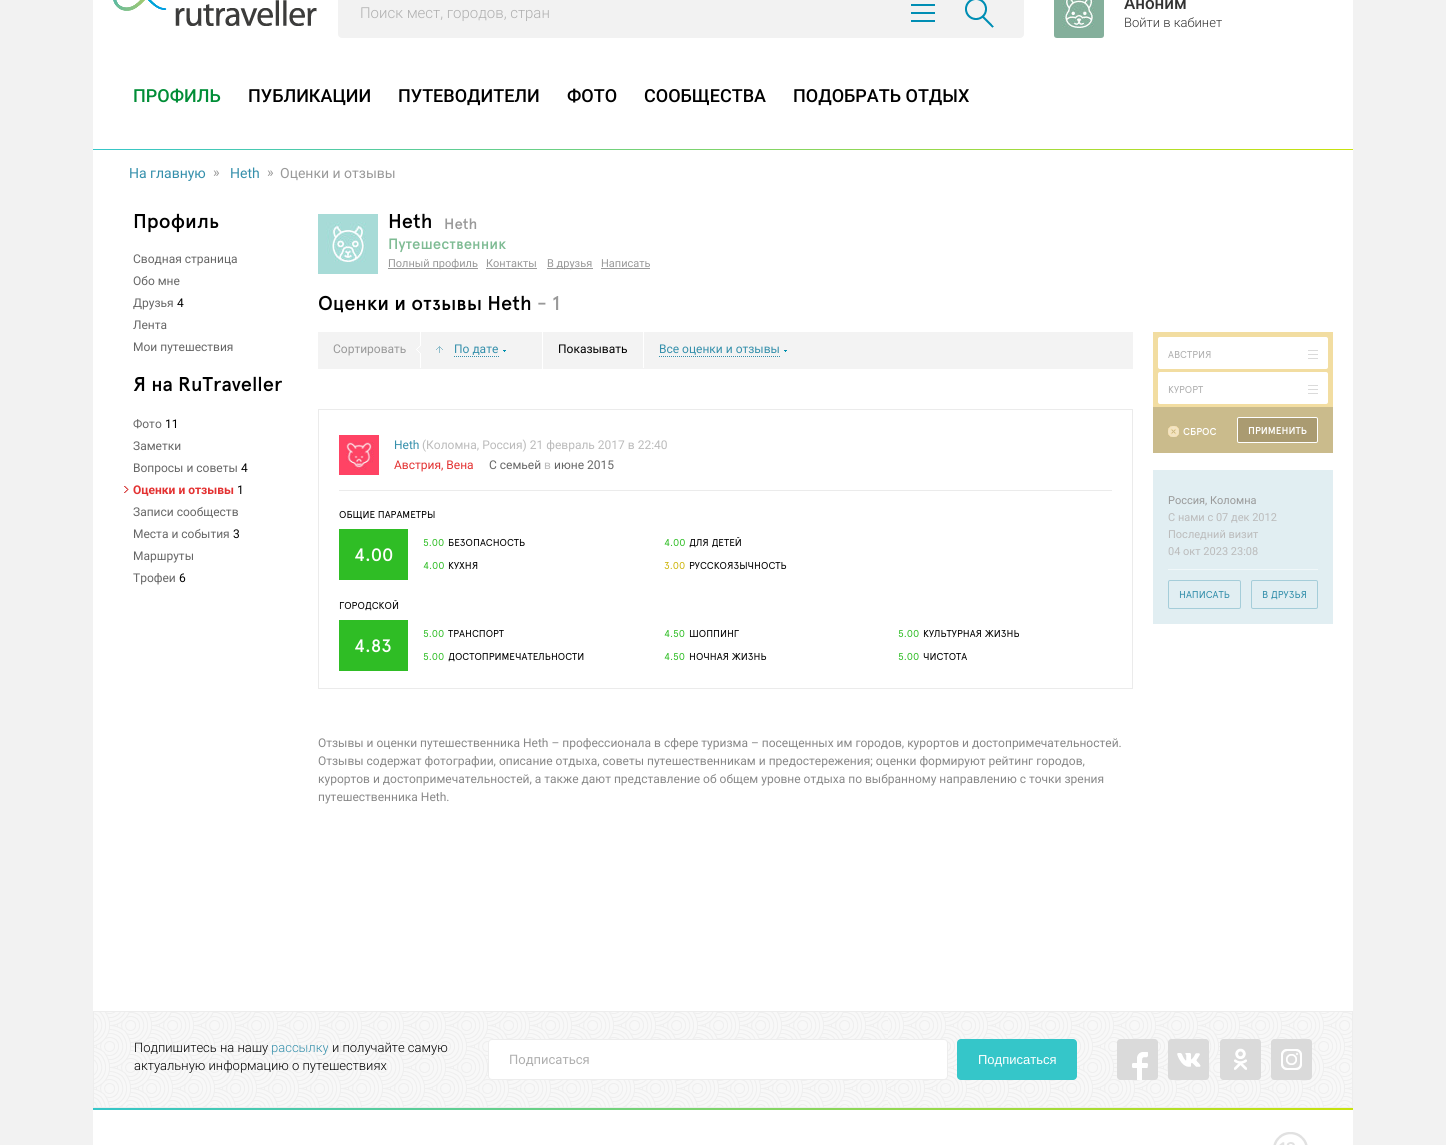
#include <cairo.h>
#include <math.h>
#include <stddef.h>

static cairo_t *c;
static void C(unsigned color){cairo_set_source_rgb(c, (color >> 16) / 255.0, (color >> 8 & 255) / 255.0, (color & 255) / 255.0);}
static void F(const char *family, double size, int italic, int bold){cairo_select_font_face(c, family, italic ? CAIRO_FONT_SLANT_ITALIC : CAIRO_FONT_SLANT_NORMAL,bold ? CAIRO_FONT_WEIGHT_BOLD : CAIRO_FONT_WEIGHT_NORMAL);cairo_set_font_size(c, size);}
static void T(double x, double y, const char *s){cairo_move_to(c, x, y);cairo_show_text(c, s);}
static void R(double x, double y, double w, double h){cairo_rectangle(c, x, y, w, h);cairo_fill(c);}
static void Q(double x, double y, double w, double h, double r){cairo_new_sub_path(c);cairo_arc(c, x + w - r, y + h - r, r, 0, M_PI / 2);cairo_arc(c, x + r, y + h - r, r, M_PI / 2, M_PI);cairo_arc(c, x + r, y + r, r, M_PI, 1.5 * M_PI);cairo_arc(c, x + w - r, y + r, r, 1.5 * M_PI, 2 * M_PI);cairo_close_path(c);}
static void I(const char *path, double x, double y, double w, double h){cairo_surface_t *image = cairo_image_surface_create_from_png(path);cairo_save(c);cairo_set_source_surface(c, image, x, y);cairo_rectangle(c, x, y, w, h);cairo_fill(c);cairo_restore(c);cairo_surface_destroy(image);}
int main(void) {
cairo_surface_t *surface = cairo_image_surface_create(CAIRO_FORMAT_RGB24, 1446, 1145);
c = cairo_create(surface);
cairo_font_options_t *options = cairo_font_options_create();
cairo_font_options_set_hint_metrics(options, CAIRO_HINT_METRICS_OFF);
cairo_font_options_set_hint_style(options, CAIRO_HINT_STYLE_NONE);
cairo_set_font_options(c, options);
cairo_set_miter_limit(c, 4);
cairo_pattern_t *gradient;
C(0xf2f2f2);
cairo_paint(c);
C(0xffffff);
R(93,0,1260,1145);
I("1.png",113,0,204,26);
C(0xf2f2f2);
Q(338,-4,686,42,4);
cairo_fill(c);
F("Roboto Light",15,0,0);
C(0xafafaf);
T(360,18,"Поиск мест, городов, стран");
I("2.png",911,4,24,18);
I("3.png",965,0,29,28);
I("4.png",1054,0,50,38);
F("Roboto Medium",17,0,0);
C(0x333333);
T(1124,9,"Аноним");
F("Roboto Light",13,0,0);
T(1124,27,"Войти в кабинет");
F("Roboto Medium",18,0,0);
C(0x008d36);
T(133,102,"ПРОФИЛЬ");
C(0x000000);
T(248,102,"ПУБЛИКАЦИИ");
T(398,102,"ПУТЕВОДИТЕЛИ");
T(567,102,"ФОТО");
T(644,102,"СООБЩЕСТВА");
T(793,102,"ПОДОБРАТЬ ОТДЫХ");
gradient = cairo_pattern_create_linear(93,150,1353,149);
cairo_pattern_add_color_stop_rgba(gradient,0,0.208,0.776,0.788,1);
cairo_pattern_add_color_stop_rgba(gradient,1,0.784,0.886,0.051,1);
cairo_set_source(c,gradient);
cairo_pattern_destroy(gradient);
R(93,149,1260,1);
F("Roboto",14,0,0);
C(0x348fab);
T(129,178,"На главную");
C(0x999999);
T(213,177,"»");
C(0x348fab);
T(230,178,"Heth");
C(0x999999);
T(267,177,"»");
T(280,178,"Оценки и отзывы");
F("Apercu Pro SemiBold",20,0,0);
C(0x000000);
T(133,228,"Профиль");
F("Roboto",12,0,0);
C(0x666666);
T(133,263,"Сводная страница");
T(133,285,"Обо мне");
T(133,307,"Друзья");
C(0x000000);
T(177,307,"4");
C(0x666666);
T(133,329,"Лента");
T(133,351,"Мои путешествия");
F("Apercu Pro SemiBold",20,0,0);
C(0x000000);
T(133,391,"Я на RuTraveller");
F("Roboto",12,0,0);
C(0x666666);
T(133,428,"Фото");
C(0x000000);
T(165,428,"11");
C(0x666666);
T(133,450,"Заметки");
T(133,472,"Вопросы и советы");
C(0x000000);
T(241,472,"4");
I("5.png",124,486,5,7);
F("Roboto",12,0,1);
C(0xe33232);
T(133,494,"Оценки и отзывы");
F("Roboto",12,0,0);
C(0x000000);
T(237,494,"1");
C(0x666666);
T(133,516,"Записи сообществ");
T(133,538,"Места и события");
C(0x000000);
T(233,538,"3");
C(0x666666);
T(133,560,"Маршруты");
T(133,582,"Трофеи");
C(0x000000);
T(179,582,"6");
I("6.png",318,214,60,60);
F("Apercu Pro SemiBold",20,0,0);
T(388,228,"Heth");
F("Apercu Pro SemiBold",15,0,0);
C(0x999999);
T(444,229,"Heth");
C(0x7ebb93);
T(388,249,"Путешественник");
C(0x999999);
R(388,268,90,1);
F("Roboto",11,0,0);
T(388,267,"Полный профиль");
T(486,267,"Контакты");
R(486,268,51,1);
R(547,268,46,1);
T(547,267,"В друзья");
T(601,267,"Написать");
R(601,268,49,1);
F("Apercu Pro SemiBold",20,0,0);
C(0x000000);
T(318,310,"Оценки и отзывы Heth");
C(0x999999);
T(537,310,"- 1");
C(0xf3f3f3);
R(318,332,815,37);
I("7.png",416,332,5,36);
F("Roboto",12,0,0);
C(0x999999);
T(333,353,"Сортировать");
C(0xffffff);
R(542,332,1,37);
I("8.png",436,346,7,7);
I("9.png",503,350,3,2);
cairo_new_path(c);
cairo_move_to(c,454,356.5);
cairo_line_to(c,499,356.5);
C(0x348fab);
cairo_set_line_width(c,1);
cairo_set_dash(c,(double[]){1,1},2,0);
cairo_stroke(c);
T(454,353,"По дате");
C(0xffffff);
R(643,332,1,36);
C(0x000000);
T(558,353,"Показывать");
I("9.png",784,350,3,2);
cairo_new_path(c);
cairo_move_to(c,659,356.5);
cairo_line_to(c,780,356.5);
C(0x348fab);
cairo_stroke(c);
T(659,353,"Все оценки и отзывы");
cairo_rectangle(c,318.5,409.5,814,279);
C(0xebebeb);
cairo_set_dash(c,NULL,0,0);
cairo_stroke(c);
R(339,490,773,1);
I("10.png",339,435,40,40);
C(0x348fab);
T(394,449,"Heth");
C(0xbbbbbb);
T(422,449,"(Коломна, Россия) 21 февраль 2017 в 22:40");
C(0xe33232);
T(394,469,"Австрия, Вена");
C(0x666666);
T(489,469,"С семьей");
C(0xbbbbbb);
T(544,469,"в");
C(0x666666);
T(554,469,"июне 2015");
F("Apercu Pro",10,0,0);
C(0x000000);
T(339,518,"ОБЩИЕ ПАРАМЕТРЫ");
C(0x2fbd25);
R(339,529,69,51);
F("Apercu Pro SemiBold",18,0,0);
C(0xffffff);
T(354,561,"4.00");
F("Apercu Pro",10,0,0);
C(0x2fbd25);
T(423,546,"5.00");
C(0x000000);
T(448,546,"БЕЗОПАСНОСТЬ");
C(0x2fbd25);
T(423,569,"4.00");
C(0x000000);
T(448,569,"КУХНЯ");
C(0x2fbd25);
T(664,546,"4.00");
C(0x000000);
T(689,546,"ДЛЯ ДЕТЕЙ");
C(0xcdb409);
T(664,569,"3.00");
C(0x000000);
T(689,569,"РУССКОЯЗЫЧНОСТЬ");
T(339,609,"ГОРОДСКОЙ");
C(0x2fbd25);
R(339,620,69,51);
F("Apercu Pro SemiBold",18,0,0);
C(0xffffff);
T(354,652,"4.83");
F("Apercu Pro",10,0,0);
C(0x2fbd25);
T(423,637,"5.00");
C(0x000000);
T(448,637,"ТРАНСПОРТ");
C(0x2fbd25);
T(423,660,"5.00");
C(0x000000);
T(448,660,"ДОСТОПРИМЕЧАТЕЛЬНОСТИ");
C(0x2fbd25);
T(664,637,"4.50");
C(0x000000);
T(689,637,"ШОППИНГ");
C(0x2fbd25);
T(664,660,"4.50");
C(0x000000);
T(689,660,"НОЧНАЯ ЖИЗНЬ");
C(0x2fbd25);
T(898,637,"5.00");
C(0x000000);
T(923,637,"КУЛЬТУРНАЯ ЖИЗНЬ");
C(0x2fbd25);
T(898,660,"5.00");
C(0x000000);
T(923,660,"ЧИСТОТА");
F("Roboto",12,0,0);
C(0x888888);
T(318,747,"Отзывы и оценки путешественника Heth – профессионала в сфере туризма – посещенных им городов, курортов и достопримечательностей.");
T(318,765,"Отзывы содержат фотографии, описание отдыха, советы путешественникам и предостережения; оценки формируют рейтинг городов,");
T(318,783,"курортов и достопримечательностей, а также дают представление об общем уровне отдыха по выбранному направлению с точки зрения");
T(318,801,"путешественника Heth.");
C(0xf2dda1);
R(1153,332,180,75);
C(0xffffff);
Q(1158,337,170,32,2);
cairo_fill(c);
F("Apercu Pro",10,0,0);
C(0xafafaf);
T(1168,358,"АВСТРИЯ");
I("11.png",1308,350,10,9);
C(0xffffff);
Q(1158,372,170,32,2);
cairo_fill(c);
C(0xafafaf);
T(1168,393,"КУРОРТ");
I("11.png",1308,385,10,9);
C(0xcabb8c);
R(1153,407,180,46);
I("12.png",1168,426,11,11);
F("Apercu Pro SemiBold",10,0,0);
C(0xffffff);
T(1183,435,"СБРОС");
C(0xaa9b71);
Q(1237.5,417.5,80,25,1.5);
cairo_fill_preserve(c);
C(0xffffff);
cairo_stroke(c);
T(1248,434,"ПРИМЕНИТЬ");
C(0xe1eef2);
R(1153,470,180,154);
C(0xf0f7f9);
R(1168,569,150,1);
F("Roboto",11,0,0);
C(0x999999);
T(1168,504,"Россия, Коломна");
C(0xbbbbbb);
T(1168,521,"С нами с 07 дек 2012");
T(1168,538,"Последний визит");
T(1168,555,"04 окт 2023 23:08");
Q(1168.5,580.5,72,28,1.5);
C(0xa5cdd9);
cairo_stroke(c);
F("Apercu Pro",10,0,0);
C(0x348fab);
T(1179,598,"НАПИСАТЬ");
Q(1251.5,580.5,66,28,1.5);
C(0xa5cdd9);
cairo_stroke(c);
C(0x348fab);
T(1262,598,"В ДРУЗЬЯ");
C(0xf6f6f6);
R(94,1012,1258,95);
I("13.png",94,1012,1258,95);
cairo_rectangle(c,93.5,1011.5,1259,96);
C(0xededed);
cairo_stroke(c);
F("Roboto Light",13,0,0);
C(0x000000);
T(134,1052,"Подпишитесь на нашу");
C(0x348fab);
T(271,1052,"рассылку");
C(0x000000);
T(332,1052,"и получайте самую");
T(134,1070,"актуальную информацию о путешествиях");
C(0xffffff);
Q(488.5,1039.5,459,40,3.5);
cairo_fill_preserve(c);
C(0xededed);
cairo_stroke(c);
F("Roboto",13,0,0);
C(0xafafaf);
T(509,1064,"Подписаться");
C(0x35c6c9);
Q(957,1039,120,41,4);
cairo_fill(c);
F("Liberation Sans",13,0,0);
C(0xffffff);
T(978,1064,"Подписаться");
I("14.png",1117,1039,41,41);
I("15.png",1168,1039,41,41);
I("16.png",1220,1039,41,41);
I("17.png",1271,1039,41,41);
gradient = cairo_pattern_create_linear(93,1109,1353,1109);
cairo_pattern_add_color_stop_rgba(gradient,0,0.208,0.776,0.788,1);
cairo_pattern_add_color_stop_rgba(gradient,1,0.784,0.886,0.051,1);
cairo_set_source(c,gradient);
cairo_pattern_destroy(gradient);
R(93,1108,1260,2);
I("18.png",1273,1132,35,13);
cairo_surface_write_to_png(surface, "o.png");
cairo_font_options_destroy(options);
cairo_destroy(c);
cairo_surface_destroy(surface);
return 0;
}
